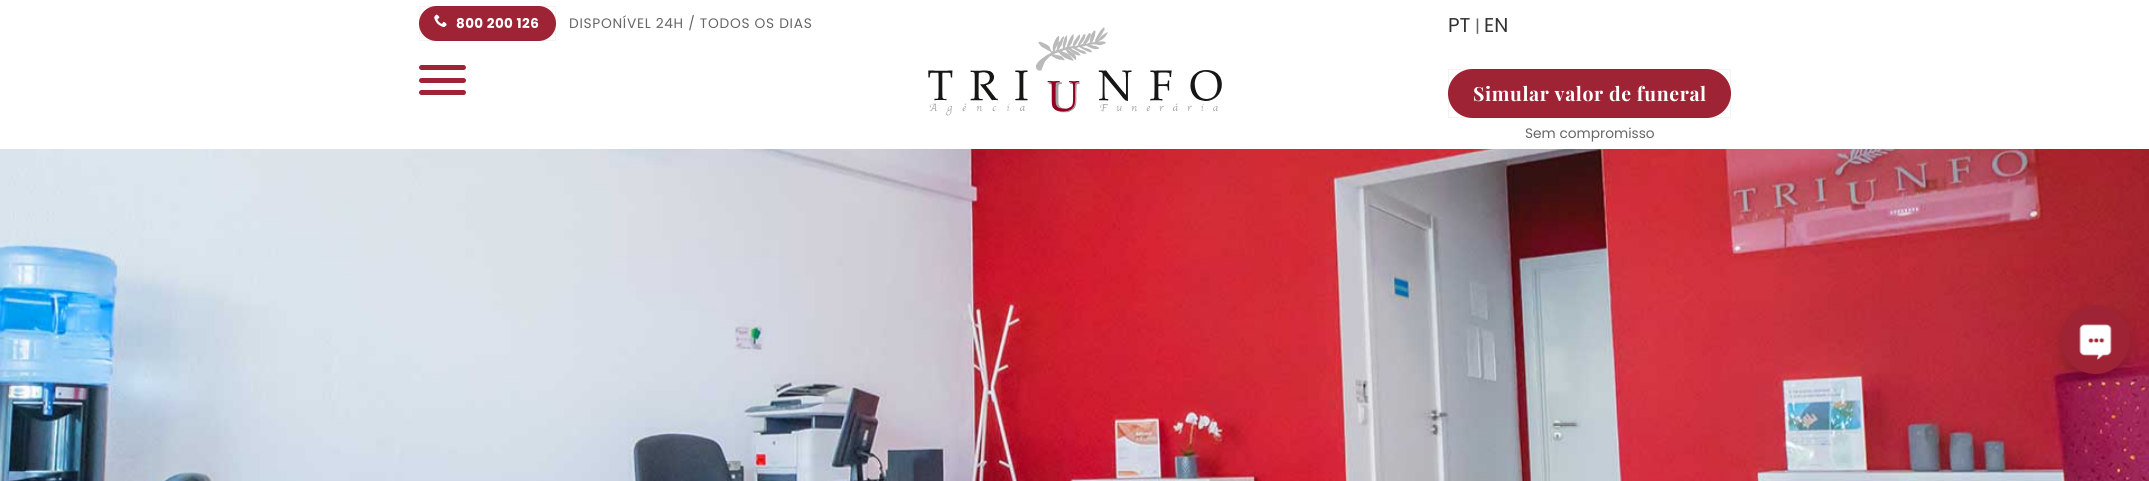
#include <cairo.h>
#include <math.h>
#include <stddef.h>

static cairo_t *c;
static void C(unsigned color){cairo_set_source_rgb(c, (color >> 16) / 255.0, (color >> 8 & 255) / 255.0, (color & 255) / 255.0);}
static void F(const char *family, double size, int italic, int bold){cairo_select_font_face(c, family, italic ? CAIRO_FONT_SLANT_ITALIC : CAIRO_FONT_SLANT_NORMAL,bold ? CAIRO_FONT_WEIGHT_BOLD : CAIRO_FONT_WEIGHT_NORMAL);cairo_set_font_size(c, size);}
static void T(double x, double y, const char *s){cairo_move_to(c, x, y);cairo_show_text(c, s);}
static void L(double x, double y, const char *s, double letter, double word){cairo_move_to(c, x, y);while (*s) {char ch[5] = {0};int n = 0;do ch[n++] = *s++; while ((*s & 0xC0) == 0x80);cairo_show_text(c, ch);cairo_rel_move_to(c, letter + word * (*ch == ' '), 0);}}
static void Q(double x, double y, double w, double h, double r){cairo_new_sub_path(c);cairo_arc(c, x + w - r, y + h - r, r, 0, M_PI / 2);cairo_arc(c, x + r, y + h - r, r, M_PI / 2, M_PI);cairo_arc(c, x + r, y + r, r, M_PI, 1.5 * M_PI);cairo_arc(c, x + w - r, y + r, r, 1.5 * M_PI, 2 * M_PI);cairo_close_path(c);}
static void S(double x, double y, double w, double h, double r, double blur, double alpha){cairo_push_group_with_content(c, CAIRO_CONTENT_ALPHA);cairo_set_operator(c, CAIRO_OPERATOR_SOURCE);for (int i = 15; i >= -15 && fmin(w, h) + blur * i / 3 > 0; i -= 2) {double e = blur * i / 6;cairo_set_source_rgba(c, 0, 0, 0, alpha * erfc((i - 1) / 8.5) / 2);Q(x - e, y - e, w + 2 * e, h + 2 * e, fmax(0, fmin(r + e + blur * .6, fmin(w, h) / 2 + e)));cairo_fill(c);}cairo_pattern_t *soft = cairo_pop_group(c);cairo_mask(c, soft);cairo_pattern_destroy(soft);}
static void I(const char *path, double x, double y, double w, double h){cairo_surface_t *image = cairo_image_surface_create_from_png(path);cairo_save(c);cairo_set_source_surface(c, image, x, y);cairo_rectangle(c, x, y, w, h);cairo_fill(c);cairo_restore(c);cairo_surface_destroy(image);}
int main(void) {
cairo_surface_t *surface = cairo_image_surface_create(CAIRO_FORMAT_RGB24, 2149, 481);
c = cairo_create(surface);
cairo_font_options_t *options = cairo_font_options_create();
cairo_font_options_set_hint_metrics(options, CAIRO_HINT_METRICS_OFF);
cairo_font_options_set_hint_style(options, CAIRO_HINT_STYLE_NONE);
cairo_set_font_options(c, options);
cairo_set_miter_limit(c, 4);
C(0xffffff);
cairo_paint(c);
C(0x9d2335);
Q(419,6,137,35,17.5);
cairo_fill(c);
cairo_rectangle(c,419.5,6.5,136,34);
cairo_set_source_rgba(c,0,0,0,0.05);
cairo_set_line_width(c,1);
cairo_stroke(c);
I("1.png",434,14,13,13);
F("Poppins",13.5,0,1);
C(0xffffff);
L(456,28,"800 200 126",.4,0);
F("Poppins",13.75,0,0);
C(0x666666);
L(569,28,"DISPONÍVEL 24H / TODOS OS DIAS",.7,0);
C(0x9d2335);
Q(419,78,47,5,2.5);
cairo_fill(c);
Q(419,65,47,5,2.5);
cairo_fill(c);
Q(419,90,47,5,2.5);
cairo_fill(c);
I("2.png",928,27,294,89);
F("Poppins",20,0,0);
C(0x333333);
T(1448,32,"PT");
F("Poppins",17,0,0);
C(0x666666);
T(1475,32,"|");
F("Poppins",20,0,0);
C(0x333333);
T(1484,32,"EN");
C(0x9d2335);
Q(1448,69,283,49,24.5);
cairo_fill(c);
cairo_rectangle(c,1448.5,69.5,282,48);
cairo_set_source_rgba(c,0,0,0,0.05);
cairo_stroke(c);
F("Playfair Display",19.5,0,1);
C(0xffffff);
L(1473,101,"Simular valor de funeral",.6,0);
F("Poppins",13.75,0,0);
C(0x666666);
T(1525,138,"Sem compromisso");
I("3.png",0,149,2149,332);
C(0x000000);
S(2061,313,69,68,34,7.5,.2);
C(0x9d2335);
cairo_arc(c,2095.5,339.5,34.5,0,2 * M_PI);
cairo_fill(c);
I("4.png",2079,324,33,36);
cairo_surface_write_to_png(surface, "o.png");
cairo_font_options_destroy(options);
cairo_destroy(c);
cairo_surface_destroy(surface);
return 0;
}
